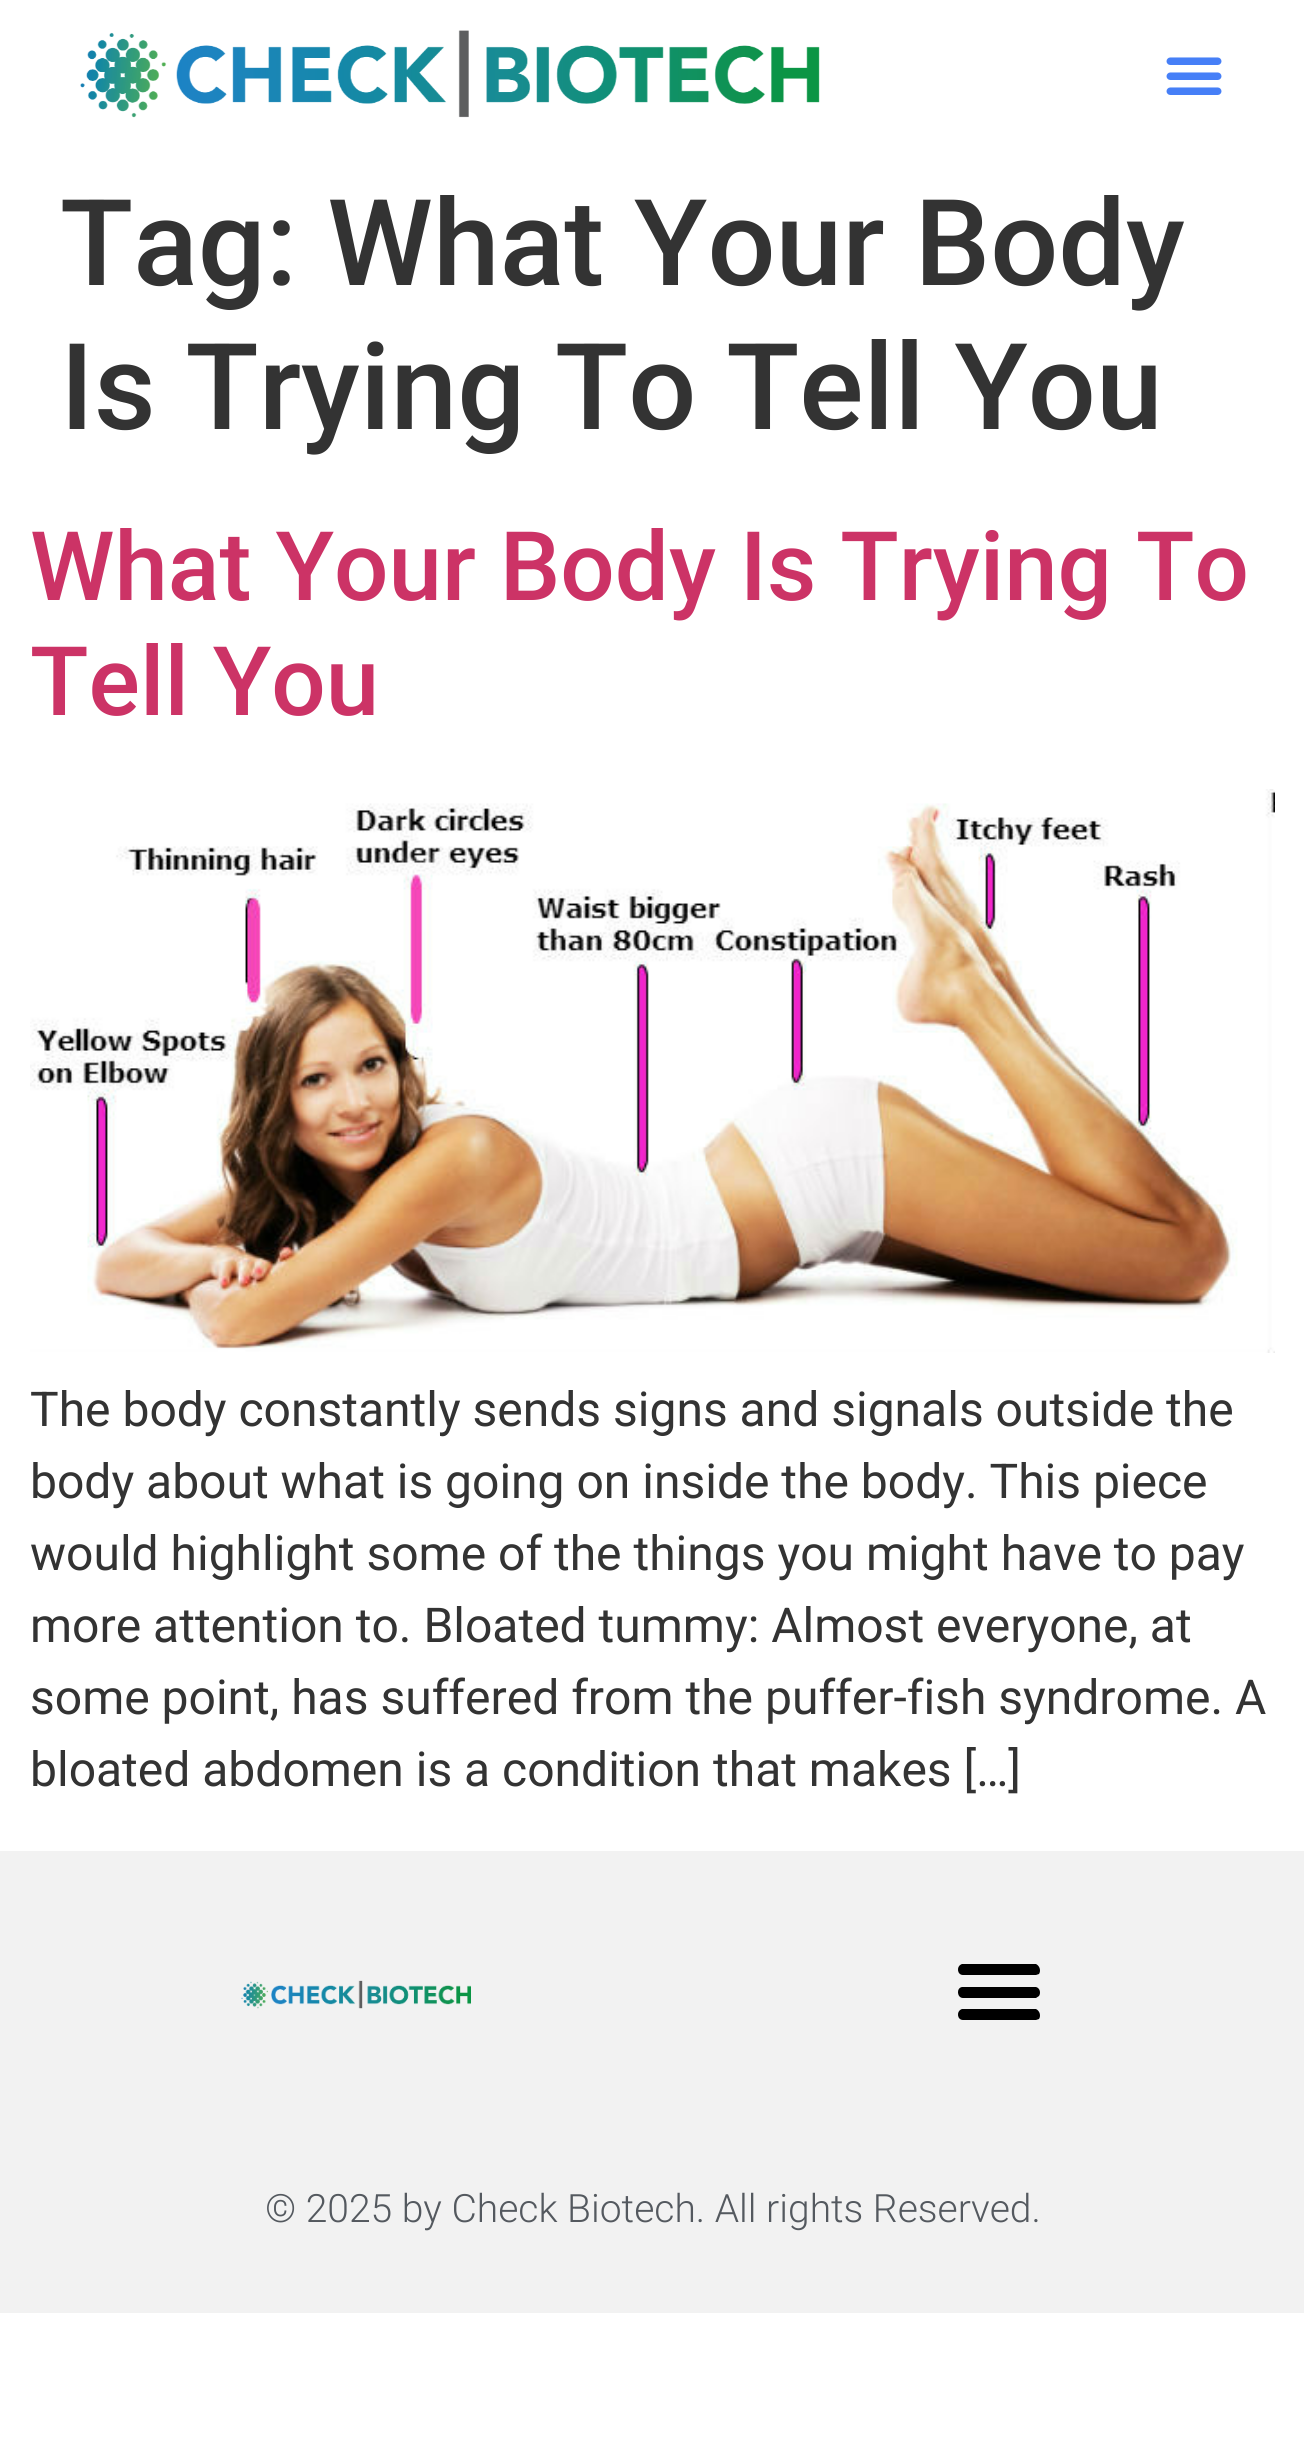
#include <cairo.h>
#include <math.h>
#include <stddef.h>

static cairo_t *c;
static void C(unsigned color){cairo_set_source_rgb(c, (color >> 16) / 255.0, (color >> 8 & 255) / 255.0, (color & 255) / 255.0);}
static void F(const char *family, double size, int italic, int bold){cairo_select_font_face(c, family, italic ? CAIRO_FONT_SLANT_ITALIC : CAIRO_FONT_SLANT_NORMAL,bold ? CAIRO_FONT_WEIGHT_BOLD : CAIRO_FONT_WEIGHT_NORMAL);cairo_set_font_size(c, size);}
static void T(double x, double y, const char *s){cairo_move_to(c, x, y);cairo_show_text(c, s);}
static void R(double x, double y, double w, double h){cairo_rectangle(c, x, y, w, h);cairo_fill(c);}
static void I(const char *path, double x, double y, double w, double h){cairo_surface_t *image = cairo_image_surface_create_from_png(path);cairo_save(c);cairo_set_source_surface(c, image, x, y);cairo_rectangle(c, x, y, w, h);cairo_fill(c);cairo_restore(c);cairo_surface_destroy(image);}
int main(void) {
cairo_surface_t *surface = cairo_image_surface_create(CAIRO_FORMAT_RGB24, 1304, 2453);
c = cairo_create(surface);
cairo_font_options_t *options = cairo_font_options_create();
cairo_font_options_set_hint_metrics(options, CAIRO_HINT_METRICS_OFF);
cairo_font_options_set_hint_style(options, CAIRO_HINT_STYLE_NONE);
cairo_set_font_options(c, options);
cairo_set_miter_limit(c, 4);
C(0xffffff);
cairo_paint(c);
I("1.png",80,30,740,88);
I("2.png",1166,57,56,38);
F("Roboto Medium",120,0,0);
C(0x333333);
T(60,285,"Tag: What Your Body");
T(60,429,"Is Trying To Tell You");
F("Roboto Medium",96,0,0);
C(0xcc3366);
T(30,600,"What Your Body Is Trying To");
T(30,715,"Tell You");
I("3.png",30,789,1245,564);
F("Roboto",48,0,0);
C(0x333333);
T(30,1426,"The body constantly sends signs and signals outside the");
T(30,1498,"body about what is going on inside the body. This piece");
T(30,1570,"would highlight some of the things you might have to pay");
T(30,1642,"more attention to. Bloated tummy: Almost everyone, at");
T(30,1714,"some point, has suffered from the puffer-fish syndrome. A");
T(30,1786,"bloated abdomen is a condition that makes […]");
C(0xf2f2f2);
R(0,1851,1304,462);
I("4.png",241,1980,230,29);
C(0x000000);
cairo_new_path(c);
cairo_move_to(c,963,1975);
cairo_line_to(c,1036,1975);
cairo_line_to(c,1039,1974);
cairo_curve_to(c,1041,1971,1040,1966,1036,1964);
cairo_line_to(c,962,1964);
cairo_curve_to(c,956,1966,957,1975,963,1975);
cairo_close_path(c);
cairo_move_to(c,963,1998);
cairo_line_to(c,1036,1998);
cairo_line_to(c,1039,1996);
cairo_curve_to(c,1041,1993,1040,1988,1036,1987);
cairo_line_to(c,962,1987);
cairo_curve_to(c,956,1988,957,1998,963,1998);
cairo_close_path(c);
cairo_move_to(c,963,2020);
cairo_line_to(c,1036,2020);
cairo_line_to(c,1039,2019);
cairo_curve_to(c,1041,2016,1040,2011,1036,2009);
cairo_line_to(c,962,2009);
cairo_curve_to(c,956,2011,957,2020,963,2020);
cairo_close_path(c);
cairo_fill(c);
F("Roboto Light",39,0,0);
C(0x54595f);
T(265,2222,"© 2025 by Check Biotech. All rights Reserved.");
cairo_surface_write_to_png(surface, "o.png");
cairo_font_options_destroy(options);
cairo_destroy(c);
cairo_surface_destroy(surface);
return 0;
}
